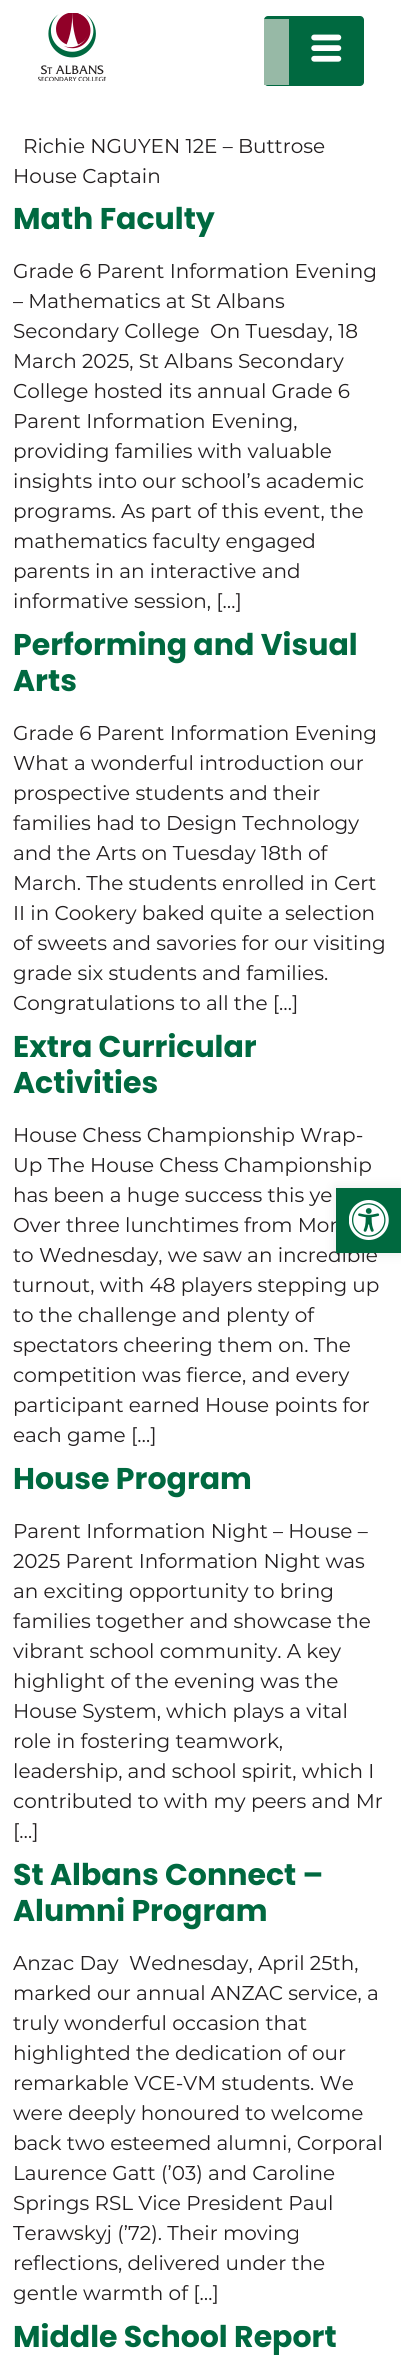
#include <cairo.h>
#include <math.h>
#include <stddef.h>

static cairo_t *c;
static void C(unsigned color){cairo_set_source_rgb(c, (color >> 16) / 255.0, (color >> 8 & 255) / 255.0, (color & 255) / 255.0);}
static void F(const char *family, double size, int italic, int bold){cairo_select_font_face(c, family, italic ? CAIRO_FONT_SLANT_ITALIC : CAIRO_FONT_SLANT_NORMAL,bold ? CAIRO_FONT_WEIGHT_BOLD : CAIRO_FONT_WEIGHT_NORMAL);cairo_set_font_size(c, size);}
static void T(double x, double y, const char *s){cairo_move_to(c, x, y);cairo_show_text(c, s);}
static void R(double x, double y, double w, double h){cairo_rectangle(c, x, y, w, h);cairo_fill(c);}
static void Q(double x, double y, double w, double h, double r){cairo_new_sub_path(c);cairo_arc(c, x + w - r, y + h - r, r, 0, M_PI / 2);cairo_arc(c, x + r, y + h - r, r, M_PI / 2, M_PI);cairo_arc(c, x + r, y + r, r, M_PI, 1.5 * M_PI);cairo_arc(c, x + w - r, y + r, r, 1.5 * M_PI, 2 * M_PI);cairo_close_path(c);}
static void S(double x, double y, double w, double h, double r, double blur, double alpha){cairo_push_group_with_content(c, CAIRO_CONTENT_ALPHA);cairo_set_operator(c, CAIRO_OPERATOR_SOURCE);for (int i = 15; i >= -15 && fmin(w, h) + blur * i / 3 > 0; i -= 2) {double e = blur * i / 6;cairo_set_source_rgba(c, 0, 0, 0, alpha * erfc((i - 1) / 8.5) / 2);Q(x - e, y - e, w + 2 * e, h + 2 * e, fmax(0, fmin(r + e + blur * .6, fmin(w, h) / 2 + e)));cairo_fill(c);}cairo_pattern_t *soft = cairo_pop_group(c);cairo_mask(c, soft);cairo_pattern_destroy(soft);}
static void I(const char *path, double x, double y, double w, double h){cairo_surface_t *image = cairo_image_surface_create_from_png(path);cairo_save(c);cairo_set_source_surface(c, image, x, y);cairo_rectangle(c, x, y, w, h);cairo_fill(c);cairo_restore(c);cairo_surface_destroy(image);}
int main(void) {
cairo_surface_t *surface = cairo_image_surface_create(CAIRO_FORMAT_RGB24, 401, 2375);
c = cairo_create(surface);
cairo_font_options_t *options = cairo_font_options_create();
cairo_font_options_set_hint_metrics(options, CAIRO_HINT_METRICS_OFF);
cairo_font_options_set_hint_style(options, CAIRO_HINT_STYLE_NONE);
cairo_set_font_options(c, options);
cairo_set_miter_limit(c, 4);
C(0xffffff);
cairo_paint(c);
I("1.png",38,13,68,68);
C(0x006940);
Q(264,16,100,70,4);
cairo_fill(c);
C(0x97b9a6);
R(264,19,25,66);
I("2.png",311,34,31,28);
F("Montserrat",20,0,0);
C(0x231f20);
T(23,153,"Richie NGUYEN 12E – Buttrose");
T(13,183,"House Captain");
F("Poppins",30,0,1);
C(0x006940);
T(13,229,"Math Faculty");
F("Montserrat",20,0,0);
C(0x231f20);
T(13,278,"Grade 6 Parent Information Evening");
T(13,308,"– Mathematics at St Albans");
T(13,338,"Secondary College  On Tuesday, 18");
T(13,368,"March 2025, St Albans Secondary");
T(13,398,"College hosted its annual Grade 6");
T(13,428,"Parent Information Evening,");
T(13,458,"providing families with valuable");
T(13,488,"insights into our school’s academic");
T(13,518,"programs. As part of this event, the");
T(13,548,"mathematics faculty engaged");
T(13,578,"parents in an interactive and");
T(13,608,"informative session, […]");
F("Poppins",30,0,1);
C(0x006940);
T(13,655,"Performing and Visual");
T(13,691,"Arts");
F("Montserrat",20,0,0);
C(0x231f20);
T(13,740,"Grade 6 Parent Information Evening");
T(13,770,"What a wonderful introduction our");
T(13,800,"prospective students and their");
T(13,830,"families had to Design Technology");
T(13,860,"and the Arts on Tuesday 18th of");
T(13,890,"March. The students enrolled in Cert");
T(13,920,"II in Cookery baked quite a selection");
T(13,950,"of sweets and savories for our visiting");
T(13,980,"grade six students and families.");
T(13,1010,"Congratulations to all the […]");
F("Poppins",30,0,1);
C(0x006940);
T(13,1057,"Extra Curricular");
T(13,1093,"Activities");
F("Montserrat",20,0,0);
C(0x231f20);
T(13,1142,"House Chess Championship Wrap-");
T(13,1172,"Up The House Chess Championship");
T(13,1202,"has been a huge success this ye");
T(13,1232,"Over three lunchtimes from Mon");
T(13,1262,"to Wednesday, we saw an incredible");
T(13,1292,"turnout, with 48 players stepping up");
T(13,1322,"to the challenge and plenty of");
T(13,1352,"spectators cheering them on. The");
T(13,1382,"competition was fierce, and every");
T(13,1412,"participant earned House points for");
T(13,1442,"each game […]");
F("Poppins",30,0,1);
C(0x006940);
T(13,1489,"House Program");
F("Montserrat",20,0,0);
C(0x231f20);
T(13,1538,"Parent Information Night – House –");
T(13,1568,"2025 Parent Information Night was");
T(13,1598,"an exciting opportunity to bring");
T(13,1628,"families together and showcase the");
T(13,1658,"vibrant school community. A key");
T(13,1688,"highlight of the evening was the");
T(13,1718,"House System, which plays a vital");
T(13,1748,"role in fostering teamwork,");
T(13,1778,"leadership, and school spirit, which I");
T(13,1808,"contributed to with my peers and Mr");
T(13,1838,"[…]");
F("Poppins",30,0,1);
C(0x006940);
T(13,1885,"St Albans Connect –");
T(13,1921,"Alumni Program");
F("Montserrat",20,0,0);
C(0x231f20);
T(13,1970,"Anzac Day  Wednesday, April 25th,");
T(13,2000,"marked our annual ANZAC service, a");
T(13,2030,"truly wonderful occasion that");
T(13,2060,"highlighted the dedication of our");
T(13,2090,"remarkable VCE-VM students. We");
T(13,2120,"were deeply honoured to welcome");
T(13,2150,"back two esteemed alumni, Corporal");
T(13,2180,"Laurence Gatt (’03) and Caroline");
T(13,2210,"Springs RSL Vice President Paul");
T(13,2240,"Terawskyj (’72). Their moving");
T(13,2270,"reflections, delivered under the");
T(13,2300,"gentle warmth of […]");
F("Poppins",30,0,1);
C(0x006940);
T(13,2347,"Middle School Report");
C(0x000000);
S(336,1188,65,65,0,6,.1);
C(0x00693f);
R(336,1188,65,65);
I("3.png",349,1200,40,40);
cairo_surface_write_to_png(surface, "o.png");
cairo_font_options_destroy(options);
cairo_destroy(c);
cairo_surface_destroy(surface);
return 0;
}
